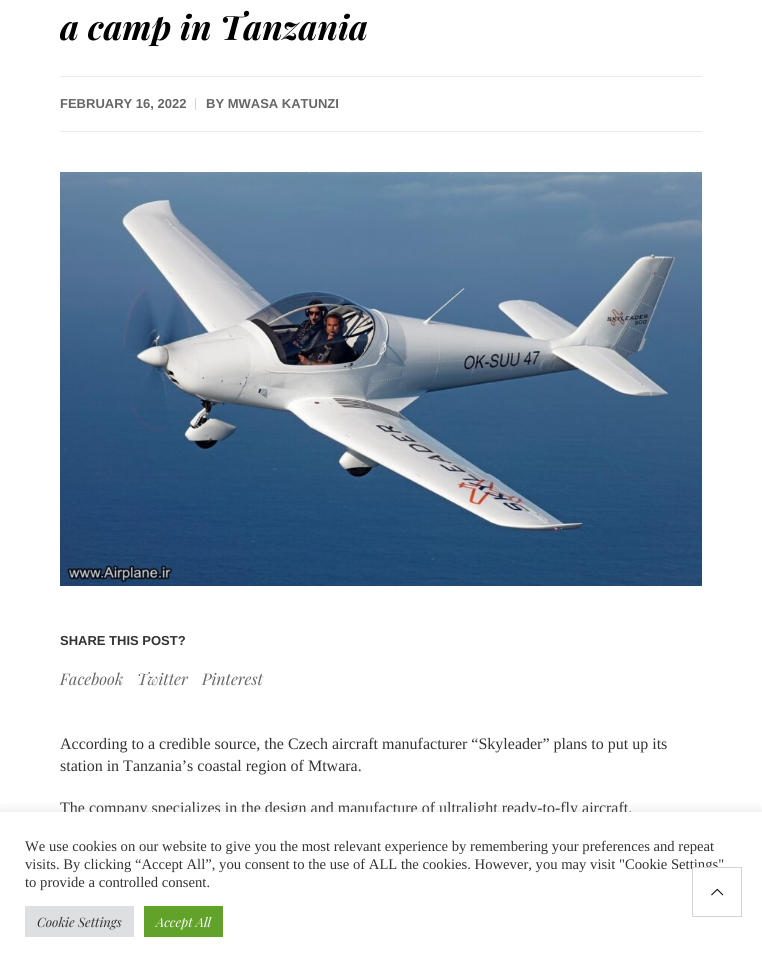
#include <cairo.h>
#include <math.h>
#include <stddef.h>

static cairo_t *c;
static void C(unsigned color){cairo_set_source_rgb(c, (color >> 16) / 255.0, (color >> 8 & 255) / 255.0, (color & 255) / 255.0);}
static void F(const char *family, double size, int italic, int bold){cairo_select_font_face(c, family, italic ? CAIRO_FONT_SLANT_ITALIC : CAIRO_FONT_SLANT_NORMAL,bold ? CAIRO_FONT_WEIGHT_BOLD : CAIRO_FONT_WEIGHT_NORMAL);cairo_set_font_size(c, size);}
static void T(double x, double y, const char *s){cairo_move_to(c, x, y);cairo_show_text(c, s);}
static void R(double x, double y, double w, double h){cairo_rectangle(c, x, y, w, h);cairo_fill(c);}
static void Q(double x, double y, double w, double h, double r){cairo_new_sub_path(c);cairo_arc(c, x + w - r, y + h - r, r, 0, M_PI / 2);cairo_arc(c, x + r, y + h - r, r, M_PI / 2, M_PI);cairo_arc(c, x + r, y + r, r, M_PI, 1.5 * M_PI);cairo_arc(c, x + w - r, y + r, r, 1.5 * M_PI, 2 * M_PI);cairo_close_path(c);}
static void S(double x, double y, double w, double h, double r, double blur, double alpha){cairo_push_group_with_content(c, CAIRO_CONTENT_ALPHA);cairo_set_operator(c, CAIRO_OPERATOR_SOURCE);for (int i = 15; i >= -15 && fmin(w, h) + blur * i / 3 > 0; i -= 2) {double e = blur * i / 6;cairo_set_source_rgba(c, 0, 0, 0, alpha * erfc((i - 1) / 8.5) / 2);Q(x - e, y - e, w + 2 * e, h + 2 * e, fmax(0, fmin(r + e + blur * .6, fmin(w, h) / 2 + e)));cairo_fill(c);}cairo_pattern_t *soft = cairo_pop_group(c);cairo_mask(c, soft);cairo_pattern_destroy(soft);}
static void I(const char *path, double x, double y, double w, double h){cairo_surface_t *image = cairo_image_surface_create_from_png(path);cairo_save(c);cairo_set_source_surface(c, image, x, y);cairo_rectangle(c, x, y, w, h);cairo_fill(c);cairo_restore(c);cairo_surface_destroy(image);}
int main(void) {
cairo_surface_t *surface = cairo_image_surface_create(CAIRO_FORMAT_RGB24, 762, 967);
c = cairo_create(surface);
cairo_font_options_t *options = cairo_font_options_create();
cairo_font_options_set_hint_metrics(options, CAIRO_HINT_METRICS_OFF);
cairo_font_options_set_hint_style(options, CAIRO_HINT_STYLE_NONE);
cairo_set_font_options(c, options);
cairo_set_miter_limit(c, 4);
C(0xffffff);
cairo_paint(c);
F("Playfair Display",34,1,1);
C(0x000000);
T(60,40,"a camp in Tanzania");
C(0xeaeaea);
R(60,76,642,1);
R(60,131,642,1);
F("Liberation Sans",13,0,1);
C(0x666666);
T(60,108,"FEBRUARY 16, 2022");
C(0xd4d4d4);
R(195,98,1,12);
C(0x666666);
T(206,108,"BY MWASA KATUNZI");
I("1.png",60,172,642,414);
C(0x333333);
T(60,645,"SHARE THIS POST?");
F("Playfair Display",16,1,0);
C(0x666666);
T(60,685,"Facebook");
T(137,685,"Twitter");
T(202,685,"Pinterest");
F("Liberation Serif",16,0,0);
C(0x333333);
T(60,749,"According to a credible source, the Czech aircraft manufacturer “Skyleader” plans to put up its");
T(60,771,"station in Tanzania’s coastal region of Mtwara.");
T(60,813,"The company specializes in the design and manufacture of ultralight ready-to-fly aircraft.");
C(0xacabab);
S(0,811,762,155,0,5,.3);
C(0xffffff);
R(0,812,762,155);
F("Liberation Serif",14.65,0,0);
C(0x333333);
T(25,869,"visits. By clicking “Accept All”, you consent to the use of ALL the cookies. However, you may visit \"Cookie Settings\"");
C(0xffffff);
R(693,868,25,5);
cairo_rectangle(c,692.5,867.5,49,49);
C(0xd4d4d4);
cairo_set_line_width(c,1);
cairo_stroke(c);
I("2.png",711,888,13,8);
C(0x333333);
T(25,851,"We use cookies on our website to give you the most relevant experience by remembering your preferences and repeat");
T(25,887,"to provide a controlled consent.");
C(0xdedfe0);
R(25,906,109,31);
F("Playfair Display",13,1,0);
C(0x333333);
T(37,927,"Cookie Settings");
C(0x61a229);
R(144,906,79,31);
C(0xffffff);
T(156,927,"Accept All");
cairo_surface_write_to_png(surface, "o.png");
cairo_font_options_destroy(options);
cairo_destroy(c);
cairo_surface_destroy(surface);
return 0;
}
